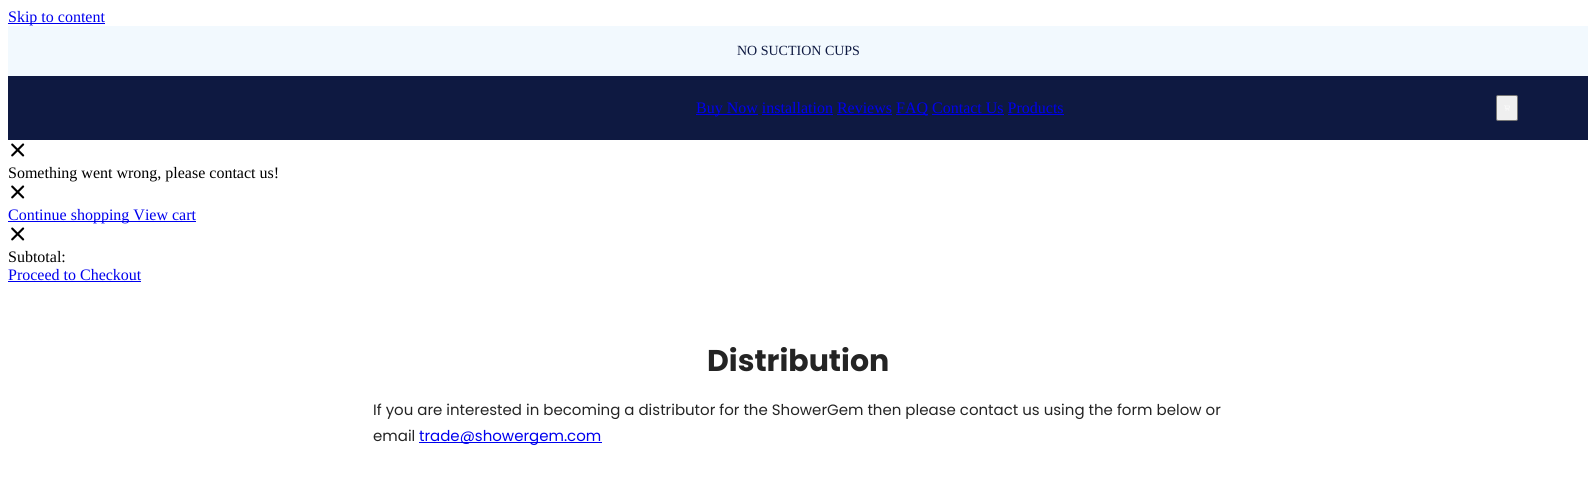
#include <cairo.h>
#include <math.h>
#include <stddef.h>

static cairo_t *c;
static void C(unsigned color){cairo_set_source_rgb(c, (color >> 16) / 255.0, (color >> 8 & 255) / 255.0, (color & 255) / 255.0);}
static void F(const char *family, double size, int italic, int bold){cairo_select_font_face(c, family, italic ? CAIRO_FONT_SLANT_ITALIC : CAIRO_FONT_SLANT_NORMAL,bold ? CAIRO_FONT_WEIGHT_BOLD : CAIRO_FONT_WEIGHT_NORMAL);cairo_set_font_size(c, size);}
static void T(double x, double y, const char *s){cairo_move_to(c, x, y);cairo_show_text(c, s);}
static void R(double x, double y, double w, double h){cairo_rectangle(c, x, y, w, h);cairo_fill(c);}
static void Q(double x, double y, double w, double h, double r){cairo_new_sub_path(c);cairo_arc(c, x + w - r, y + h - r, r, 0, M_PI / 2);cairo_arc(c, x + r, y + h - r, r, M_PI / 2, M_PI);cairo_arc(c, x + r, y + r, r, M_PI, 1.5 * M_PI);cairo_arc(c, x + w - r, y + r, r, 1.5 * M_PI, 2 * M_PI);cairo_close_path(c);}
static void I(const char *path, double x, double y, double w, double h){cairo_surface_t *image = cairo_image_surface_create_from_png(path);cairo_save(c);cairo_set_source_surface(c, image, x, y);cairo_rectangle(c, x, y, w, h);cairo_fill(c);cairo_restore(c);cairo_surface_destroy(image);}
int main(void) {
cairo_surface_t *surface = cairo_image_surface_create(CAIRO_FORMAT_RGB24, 1596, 480);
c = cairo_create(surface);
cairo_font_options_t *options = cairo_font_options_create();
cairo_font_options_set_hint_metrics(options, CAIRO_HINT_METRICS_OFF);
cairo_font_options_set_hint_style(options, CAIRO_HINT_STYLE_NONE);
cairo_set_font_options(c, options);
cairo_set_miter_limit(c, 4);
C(0xffffff);
cairo_paint(c);
C(0x0000ee);
R(8,23,97,1);
F("Liberation Serif",16,0,0);
T(8,22,"Skip to content");
C(0xf2f9fe);
R(8,26,1580,50);
F("Liberation Serif",14,0,0);
C(0x0e1941);
T(737,55,"NO SUCTION CUPS");
R(8,76,1580,64);
C(0x0000ee);
R(696,114,62,1);
F("Liberation Serif",16,0,0);
T(696,113,"Buy Now installation Reviews");
R(896,114,32,1);
T(896,113,"FAQ Contact Us Products");
R(762,114,71,1);
R(837,114,55,1);
R(932,114,72,1);
R(1008,114,56,1);
C(0xefefef);
Q(1496.5,95.5,21,25,1.5);
cairo_fill_preserve(c);
C(0x767676);
cairo_set_line_width(c,1);
cairo_stroke(c);
I("1.png",1504,105,6,6);
I("2.png",11,143,14,14);
C(0x000000);
T(8,178,"Something went wrong, please contact us!");
I("2.png",11,185,14,14);
C(0x0000ee);
R(8,221,188,1);
T(8,220,"Continue shopping View cart");
I("2.png",11,227,14,14);
C(0x000000);
T(8,262,"Subtotal:");
C(0x0000ee);
T(8,280,"Proceed to Checkout");
R(8,281,133,1);
F("Poppins",30,0,1);
C(0x242424);
T(707,371,"Distribution");
F("Poppins",15,0,0);
T(373,415,"If you are interested in becoming a distributor for the ShowerGem then please contact us using the form below or");
T(373,441,"email");
C(0x0000ee);
R(419,442,183,1);
T(419,441,"trade@showergem.com");
cairo_surface_write_to_png(surface, "o.png");
cairo_font_options_destroy(options);
cairo_destroy(c);
cairo_surface_destroy(surface);
return 0;
}
